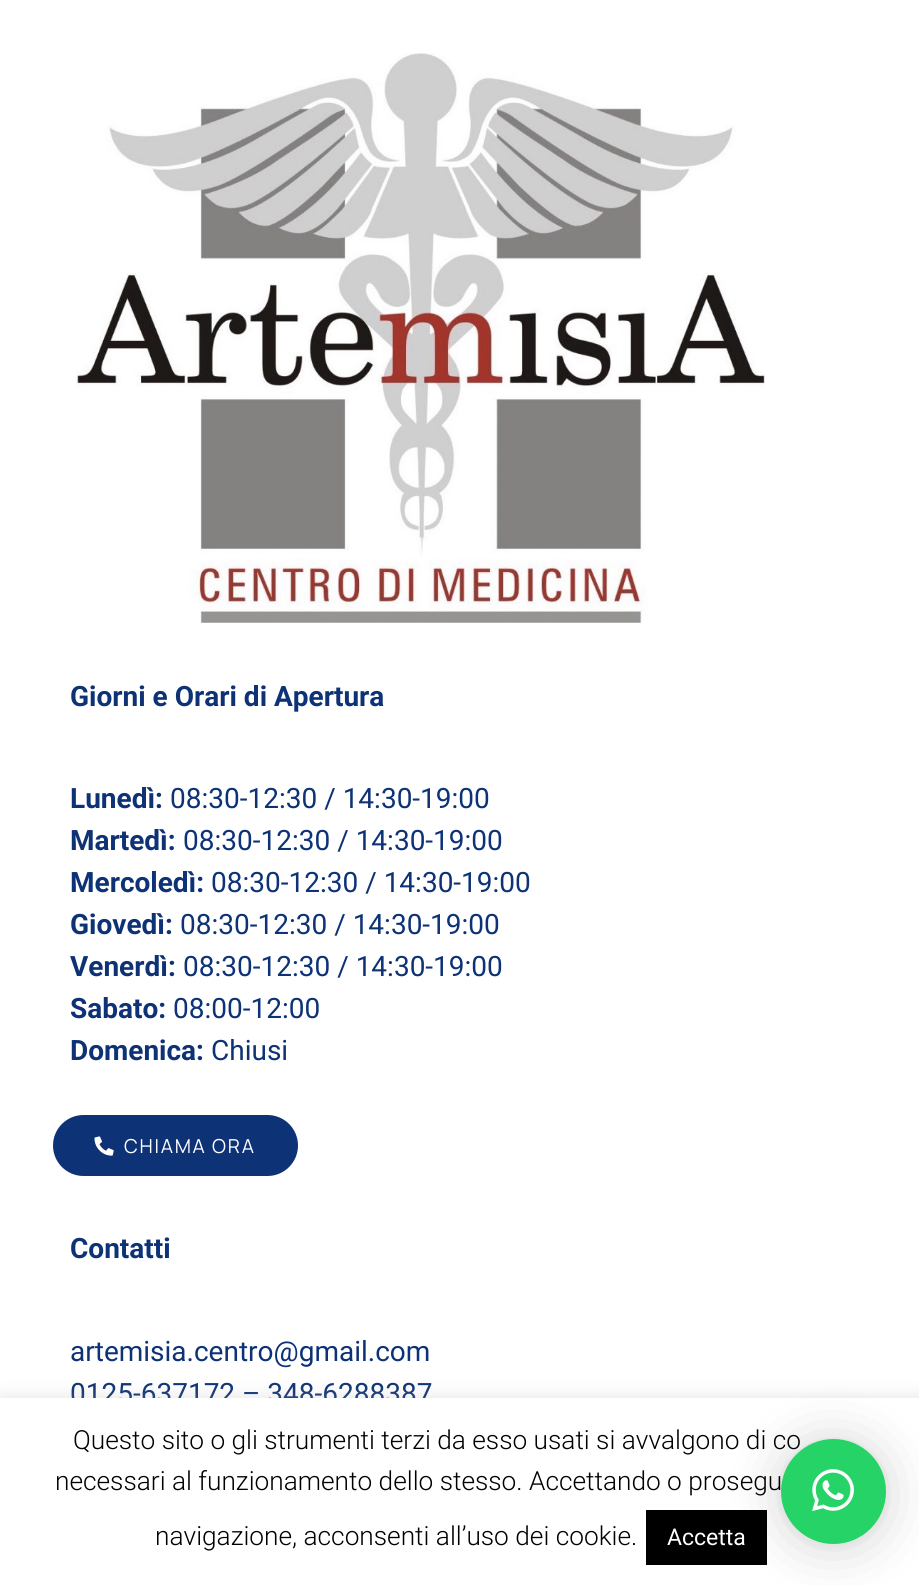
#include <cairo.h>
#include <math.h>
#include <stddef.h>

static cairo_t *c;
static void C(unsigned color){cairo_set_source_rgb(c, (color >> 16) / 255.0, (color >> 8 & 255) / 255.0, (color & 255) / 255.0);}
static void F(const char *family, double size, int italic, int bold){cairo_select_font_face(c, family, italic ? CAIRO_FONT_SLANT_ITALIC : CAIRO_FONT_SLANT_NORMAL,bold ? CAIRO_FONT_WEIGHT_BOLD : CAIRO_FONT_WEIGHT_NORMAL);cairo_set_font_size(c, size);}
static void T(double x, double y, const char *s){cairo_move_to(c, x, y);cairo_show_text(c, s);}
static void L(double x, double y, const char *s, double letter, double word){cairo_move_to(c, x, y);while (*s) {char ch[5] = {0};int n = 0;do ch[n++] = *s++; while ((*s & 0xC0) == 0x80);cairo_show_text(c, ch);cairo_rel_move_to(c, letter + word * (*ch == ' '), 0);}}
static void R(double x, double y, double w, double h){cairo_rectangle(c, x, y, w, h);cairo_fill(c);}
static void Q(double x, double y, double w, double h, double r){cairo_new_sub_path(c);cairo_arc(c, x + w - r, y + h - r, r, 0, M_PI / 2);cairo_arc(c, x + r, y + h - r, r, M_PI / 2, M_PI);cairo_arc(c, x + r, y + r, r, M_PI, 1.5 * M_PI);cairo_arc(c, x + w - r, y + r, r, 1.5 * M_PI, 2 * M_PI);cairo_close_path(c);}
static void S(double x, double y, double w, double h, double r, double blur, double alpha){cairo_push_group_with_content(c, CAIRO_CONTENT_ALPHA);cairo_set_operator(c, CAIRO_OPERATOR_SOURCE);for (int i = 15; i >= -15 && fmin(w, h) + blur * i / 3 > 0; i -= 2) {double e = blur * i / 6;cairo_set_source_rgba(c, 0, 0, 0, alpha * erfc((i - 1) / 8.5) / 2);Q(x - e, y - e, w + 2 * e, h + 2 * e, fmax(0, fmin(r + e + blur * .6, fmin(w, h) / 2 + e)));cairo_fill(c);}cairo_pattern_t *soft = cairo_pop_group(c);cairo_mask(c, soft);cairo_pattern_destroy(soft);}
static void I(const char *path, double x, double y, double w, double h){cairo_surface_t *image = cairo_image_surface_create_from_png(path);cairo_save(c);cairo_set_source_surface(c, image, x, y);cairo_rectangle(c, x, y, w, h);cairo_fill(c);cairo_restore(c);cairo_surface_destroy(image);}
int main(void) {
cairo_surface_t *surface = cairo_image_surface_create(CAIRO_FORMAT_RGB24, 919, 1585);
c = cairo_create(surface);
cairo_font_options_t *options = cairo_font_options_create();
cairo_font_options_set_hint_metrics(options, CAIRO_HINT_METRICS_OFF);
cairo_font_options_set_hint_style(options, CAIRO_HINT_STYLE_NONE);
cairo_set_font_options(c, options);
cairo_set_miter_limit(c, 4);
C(0xffffff);
cairo_paint(c);
I("1.png",75,53,690,570);
F("Roboto",28,0,1);
C(0x0d3276);
T(70,706,"Giorni e Orari di Apertura");
T(70,808,"Lunedì:");
F("Roboto",28,0,0);
T(170,808,"08:30-12:30 / 14:30-19:00");
F("Roboto",28,0,1);
T(70,850,"Martedì:");
F("Roboto",28,0,0);
T(183,850,"08:30-12:30 / 14:30-19:00");
F("Roboto",28,0,1);
T(70,892,"Mercoledì:");
F("Roboto",28,0,0);
T(211,892,"08:30-12:30 / 14:30-19:00");
F("Roboto",28,0,1);
T(70,934,"Giovedì:");
F("Roboto",28,0,0);
T(180,934,"08:30-12:30 / 14:30-19:00");
F("Roboto",28,0,1);
T(70,976,"Venerdì:");
F("Roboto",28,0,0);
T(183,976,"08:30-12:30 / 14:30-19:00");
F("Roboto",28,0,1);
T(70,1018,"Sabato:");
F("Roboto",28,0,0);
T(173,1018,"08:00-12:00");
F("Roboto",28,0,1);
T(70,1060,"Domenica:");
F("Roboto",28,0,0);
T(211,1060,"Chiusi");
Q(53,1115,245,61,30.5);
cairo_fill(c);
I("2.png",94,1136,20,20);
F("Manrope",19.25,0,0);
C(0xffffff);
L(124,1153,"CHIAMA ORA",1.75,0);
F("Roboto",28,0,1);
C(0x0d3276);
T(70,1258,"Contatti");
F("Roboto",28,0,0);
T(70,1361,"artemisia.centro@gmail.com");
T(70,1403,"0125-637172 – 348-6288387");
C(0xacabab);
S(0,1397,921,187,0,9,.3);
C(0xffffff);
R(0,1398,919,187);
F("Roboto Light",26.25,0,0);
C(0x000000);
T(73,1449,"Questo sito o gli strumenti terzi da esso usati si avvalgono di co");
T(55,1490,"necessari al funzionamento dello stesso. Accettando o prosegu");
T(155,1545,"navigazione, acconsenti all’uso dei cookie.");
R(646,1510,121,55);
F("Roboto",23,0,0);
C(0xffffff);
T(667,1545,"Accetta");
C(0x000000);
S(781,1442,105,105,52.5,28,.16);
S(781,1440,105,105,52.5,5,.06);
C(0x25d366);
cairo_arc(c,833.5,1491.5,52.5,0,2 * M_PI);
cairo_fill(c);
I("3.png",812,1469,42,43);
cairo_surface_write_to_png(surface, "o.png");
cairo_font_options_destroy(options);
cairo_destroy(c);
cairo_surface_destroy(surface);
return 0;
}
